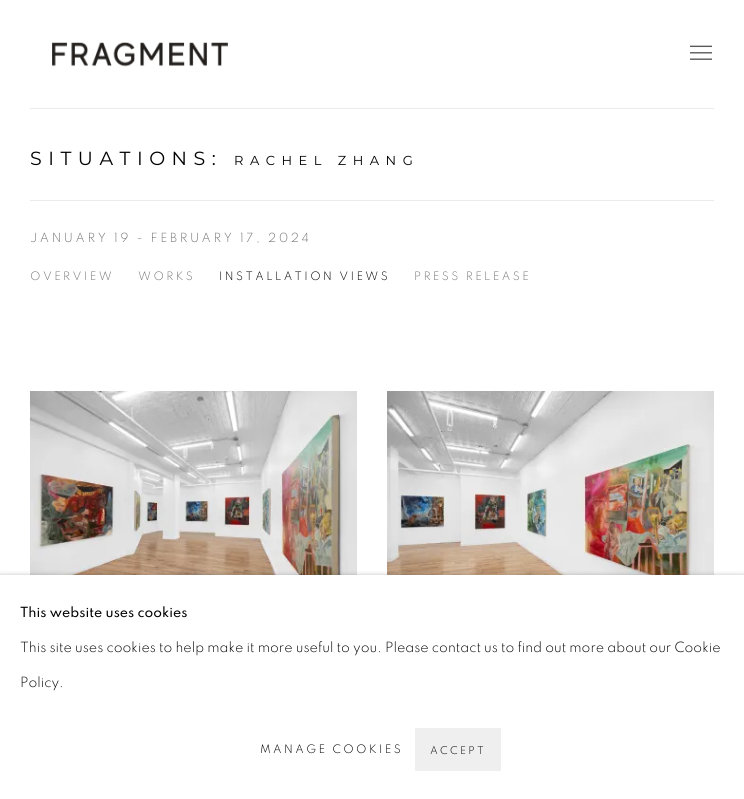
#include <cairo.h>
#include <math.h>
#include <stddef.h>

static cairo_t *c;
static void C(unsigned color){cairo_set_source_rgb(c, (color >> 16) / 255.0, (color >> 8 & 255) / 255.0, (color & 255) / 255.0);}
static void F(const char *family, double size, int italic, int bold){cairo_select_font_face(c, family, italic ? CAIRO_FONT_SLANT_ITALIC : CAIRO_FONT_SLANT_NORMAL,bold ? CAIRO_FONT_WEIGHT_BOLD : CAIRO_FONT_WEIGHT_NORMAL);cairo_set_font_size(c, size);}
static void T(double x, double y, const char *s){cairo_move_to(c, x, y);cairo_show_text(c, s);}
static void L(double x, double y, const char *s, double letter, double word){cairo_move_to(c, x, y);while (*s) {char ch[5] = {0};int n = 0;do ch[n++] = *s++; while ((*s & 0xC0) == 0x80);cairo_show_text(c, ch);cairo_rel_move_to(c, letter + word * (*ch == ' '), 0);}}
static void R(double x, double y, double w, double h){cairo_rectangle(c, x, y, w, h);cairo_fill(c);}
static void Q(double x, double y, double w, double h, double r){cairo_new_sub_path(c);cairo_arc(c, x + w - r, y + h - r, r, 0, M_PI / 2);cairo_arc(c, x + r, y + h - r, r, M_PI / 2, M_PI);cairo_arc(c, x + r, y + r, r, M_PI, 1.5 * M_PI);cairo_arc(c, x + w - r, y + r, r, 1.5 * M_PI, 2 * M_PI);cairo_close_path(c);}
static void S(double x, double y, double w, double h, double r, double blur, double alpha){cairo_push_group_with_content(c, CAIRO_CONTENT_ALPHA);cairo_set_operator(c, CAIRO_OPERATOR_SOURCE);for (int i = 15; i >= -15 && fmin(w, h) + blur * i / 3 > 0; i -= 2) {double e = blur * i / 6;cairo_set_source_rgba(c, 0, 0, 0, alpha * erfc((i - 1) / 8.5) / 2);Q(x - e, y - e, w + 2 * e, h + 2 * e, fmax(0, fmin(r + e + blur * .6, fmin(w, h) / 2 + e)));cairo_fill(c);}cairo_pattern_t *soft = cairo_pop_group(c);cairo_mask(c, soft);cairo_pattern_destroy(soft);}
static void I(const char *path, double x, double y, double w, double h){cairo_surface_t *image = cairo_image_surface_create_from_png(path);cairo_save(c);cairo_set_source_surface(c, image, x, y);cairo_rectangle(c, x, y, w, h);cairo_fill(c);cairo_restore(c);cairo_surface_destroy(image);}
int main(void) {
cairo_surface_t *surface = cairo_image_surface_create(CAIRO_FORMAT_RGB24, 744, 799);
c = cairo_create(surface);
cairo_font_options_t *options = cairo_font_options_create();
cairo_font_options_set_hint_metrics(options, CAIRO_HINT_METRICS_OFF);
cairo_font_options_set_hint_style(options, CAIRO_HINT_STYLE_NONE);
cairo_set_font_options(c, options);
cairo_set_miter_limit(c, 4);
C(0xffffff);
cairo_paint(c);
C(0xebebeb);
R(30,108,684,1);
I("1.png",52,42,176,25);
I("2.png",690,45,22,15);
R(30,200,684,1);
F("Montserrat",19,0,0);
C(0x010101);
L(30,165,"SITUATIONS:",6.5,0);
F("Montserrat",13,0,0);
L(234,165,"RACHEL ZHANG",6.5,0);
F("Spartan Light",13,0,0);
C(0x757575);
L(30,242,"JANUARY 19 - FEBRUARY 17, 2024",2.6,0);
F("Spartan Light",12,0,0);
L(30,280,"OVERVIEW",2.4,0);
L(138,280,"WORKS",2.4,0);
C(0x010101);
L(219,280,"INSTALLATION VIEWS",2.4,0);
C(0x757575);
L(414,280,"PRESS RELEASE",2.4,0);
I("3.png",30,391,327,184);
I("4.png",387,391,327,184);
C(0x000000);
S(0,575,744,224,0,2.5,.23);
C(0xffffff);
R(0,575,744,224);
F("Spartan Medium",14.5,0,0);
C(0x010101);
T(20,617,"This website uses cookies");
F("Spartan Light",14.5,0,0);
T(20,652,"This site uses cookies to help make it more useful to you. Please contact us to find out more about our Cookie");
T(20,687,"Policy.");
F("Spartan Light",12,0,0);
L(260,753,"MANAGE COOKIES",2.4,0);
C(0xefefef);
R(415,728,86,43);
F("Spartan Light",11,0,0);
C(0x010101);
L(430,754,"ACCEPT",2.25,0);
cairo_surface_write_to_png(surface, "o.png");
cairo_font_options_destroy(options);
cairo_destroy(c);
cairo_surface_destroy(surface);
return 0;
}
